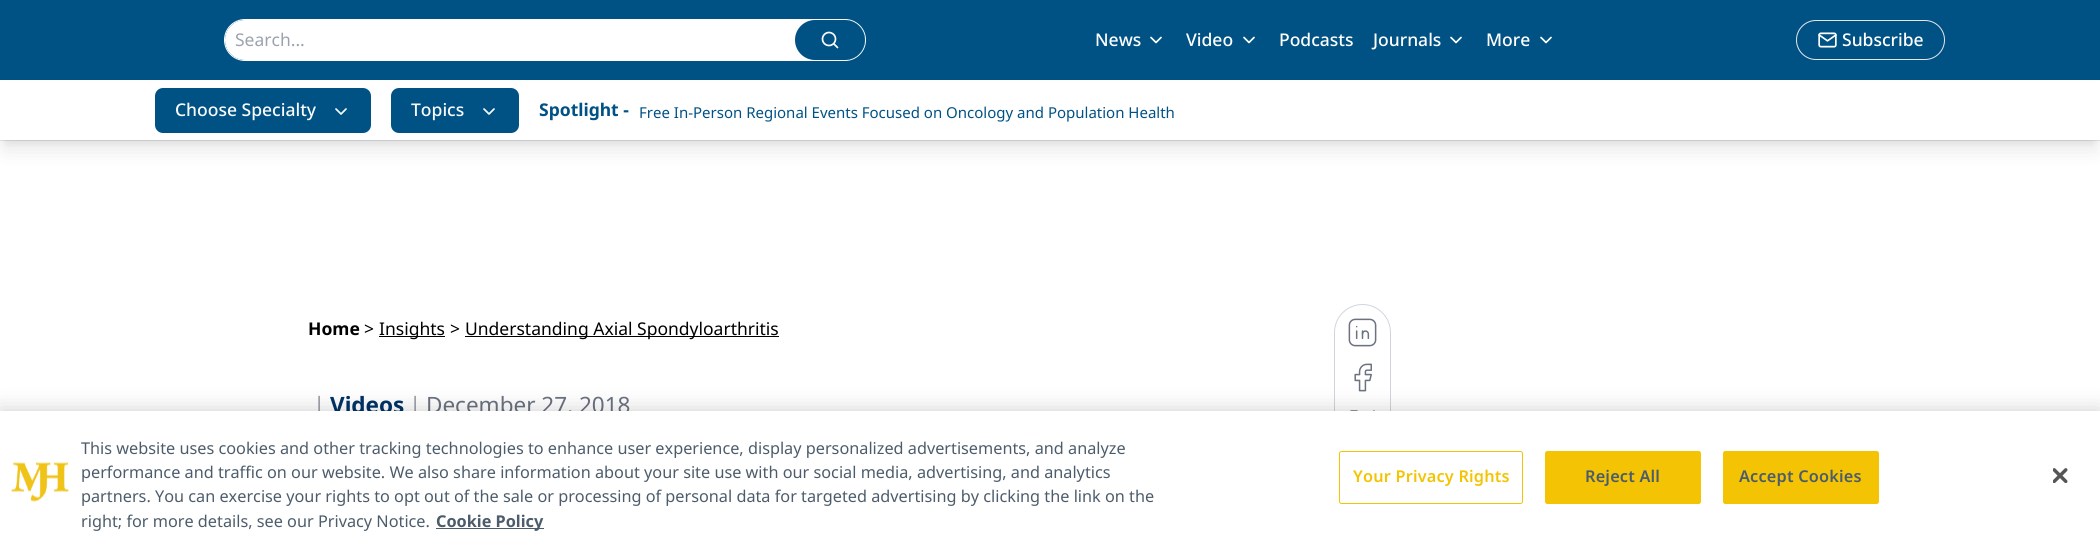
#include <cairo.h>
#include <math.h>
#include <stddef.h>

static cairo_t *c;
static void C(unsigned color){cairo_set_source_rgb(c, (color >> 16) / 255.0, (color >> 8 & 255) / 255.0, (color & 255) / 255.0);}
static void F(const char *family, double size, int italic, int bold){cairo_select_font_face(c, family, italic ? CAIRO_FONT_SLANT_ITALIC : CAIRO_FONT_SLANT_NORMAL,bold ? CAIRO_FONT_WEIGHT_BOLD : CAIRO_FONT_WEIGHT_NORMAL);cairo_set_font_size(c, size);}
static void T(double x, double y, const char *s){cairo_move_to(c, x, y);cairo_show_text(c, s);}
static void L(double x, double y, const char *s, double letter, double word){cairo_move_to(c, x, y);while (*s) {char ch[5] = {0};int n = 0;do ch[n++] = *s++; while ((*s & 0xC0) == 0x80);cairo_show_text(c, ch);cairo_rel_move_to(c, letter + word * (*ch == ' '), 0);}}
static void R(double x, double y, double w, double h){cairo_rectangle(c, x, y, w, h);cairo_fill(c);}
static void Q(double x, double y, double w, double h, double r){cairo_new_sub_path(c);cairo_arc(c, x + w - r, y + h - r, r, 0, M_PI / 2);cairo_arc(c, x + r, y + h - r, r, M_PI / 2, M_PI);cairo_arc(c, x + r, y + r, r, M_PI, 1.5 * M_PI);cairo_arc(c, x + w - r, y + r, r, 1.5 * M_PI, 2 * M_PI);cairo_close_path(c);}
static void S(double x, double y, double w, double h, double r, double blur, double alpha){cairo_push_group_with_content(c, CAIRO_CONTENT_ALPHA);cairo_set_operator(c, CAIRO_OPERATOR_SOURCE);for (int i = 15; i >= -15 && fmin(w, h) + blur * i / 3 > 0; i -= 2) {double e = blur * i / 6;cairo_set_source_rgba(c, 0, 0, 0, alpha * erfc((i - 1) / 8.5) / 2);Q(x - e, y - e, w + 2 * e, h + 2 * e, fmax(0, fmin(r + e + blur * .6, fmin(w, h) / 2 + e)));cairo_fill(c);}cairo_pattern_t *soft = cairo_pop_group(c);cairo_mask(c, soft);cairo_pattern_destroy(soft);}
static void I(const char *path, double x, double y, double w, double h){cairo_surface_t *image = cairo_image_surface_create_from_png(path);cairo_save(c);cairo_set_source_surface(c, image, x, y);cairo_rectangle(c, x, y, w, h);cairo_fill(c);cairo_restore(c);cairo_surface_destroy(image);}
int main(void) {
cairo_surface_t *surface = cairo_image_surface_create(CAIRO_FORMAT_RGB24, 2100, 546);
c = cairo_create(surface);
cairo_font_options_t *options = cairo_font_options_create();
cairo_font_options_set_hint_metrics(options, CAIRO_HINT_METRICS_OFF);
cairo_font_options_set_hint_style(options, CAIRO_HINT_STYLE_NONE);
cairo_set_font_options(c, options);
cairo_set_miter_limit(c, 4);
C(0xffffff);
cairo_paint(c);
C(0x005285);
R(0,0,2100,80);
C(0xe5e7eb);
R(0,140,2100,1);
Q(224.5,19.5,641,41,20.5);
C(0xffffff);
cairo_set_line_width(c,1);
cairo_stroke(c);
Q(225,20,640,40,20);
cairo_fill(c);
F("Noto Sans",17.5,0,0);
C(0x9ca3af);
T(235,46,"Search...");
C(0x005285);
Q(795,20,70,40,20);
cairo_fill(c);
cairo_arc(c,829,39,6.5,0,2 * M_PI);
C(0xffffff);
cairo_set_line_width(c,1.7);
cairo_stroke(c);
cairo_new_path(c);
cairo_move_to(c,837.5,47.5);
cairo_line_to(c,834,44);
cairo_set_line_cap(c,CAIRO_LINE_CAP_ROUND);
cairo_set_line_join(c,CAIRO_LINE_JOIN_ROUND);
cairo_stroke(c);
F("Noto Sans Medium",17.5,0,0);
T(1095,46,"News");
cairo_new_path(c);
cairo_move_to(c,1151,37.5);
cairo_line_to(c,1156,42.5);
cairo_line_to(c,1161,37.5);
cairo_stroke(c);
T(1186,46,"Video");
cairo_new_path(c);
cairo_move_to(c,1244,37.5);
cairo_line_to(c,1249,42.5);
cairo_line_to(c,1254,37.5);
cairo_stroke(c);
T(1279,46,"Podcasts");
T(1373,46,"Journals");
cairo_new_path(c);
cairo_move_to(c,1451,37.5);
cairo_line_to(c,1456,42.5);
cairo_line_to(c,1461,37.5);
cairo_stroke(c);
T(1486,46,"More");
cairo_new_path(c);
cairo_move_to(c,1541,37.5);
cairo_line_to(c,1546,42.5);
cairo_line_to(c,1551,37.5);
cairo_stroke(c);
Q(1796.5,20.5,148,39,19.5);
C(0xe5e7eb);
cairo_set_line_width(c,1);
cairo_set_line_cap(c,CAIRO_LINE_CAP_BUTT);
cairo_set_line_join(c,CAIRO_LINE_JOIN_MITER);
cairo_stroke(c);
I("1.png",1818,32,19,16);
C(0xffffff);
T(1842,46,"Subscribe");
C(0x000000);
S(5,90,2090,50,0,4,.1);
S(4,96,2092,53,0,9.5,.1);
C(0xffffff);
R(0,82,2100,58);
C(0x005285);
Q(155,88,216,45,8);
cairo_fill(c);
C(0xf9fafb);
T(175,116,"Choose Specialty");
cairo_new_path(c);
cairo_move_to(c,336,109);
cairo_line_to(c,341,114);
cairo_line_to(c,346,109);
cairo_set_line_width(c,1.7);
cairo_set_line_cap(c,CAIRO_LINE_CAP_ROUND);
cairo_set_line_join(c,CAIRO_LINE_JOIN_ROUND);
cairo_stroke(c);
C(0x005285);
Q(391,88,128,45,8);
cairo_fill(c);
C(0xf9fafb);
T(411,116,"Topics");
cairo_new_path(c);
cairo_move_to(c,484,109);
cairo_line_to(c,489,114);
cairo_line_to(c,494,109);
cairo_stroke(c);
F("Noto Sans",17.5,0,1);
C(0x005285);
T(539,116,"Spotlight -");
F("Noto Sans",15,0,0);
T(639,118,"Free In-Person Regional Events Focused on Oncology and Population Health");
F("Noto Sans",17.5,0,1);
C(0x000000);
T(308,335,"Home");
F("Noto Sans",17.5,0,0);
T(364,335,">");
R(379,336,66,1);
T(379,335,"Insights");
T(450,335,">");
R(465,336,314,1);
T(465,335,"Understanding Axial Spondyloarthritis");
F("Noto Sans Light",22.5,0,0);
C(0x6b7280);
T(313,413,"|");
F("Noto Sans",22.5,0,1);
C(0x003366);
T(330,413,"Videos");
F("Noto Sans Light",22.5,0,0);
C(0x6b7280);
T(409,413,"|");
F("Noto Sans",22.5,0,0);
T(426,413,"December 27, 2018");
Q(1334.5,304.5,56,236,28);
C(0xd1d5db);
cairo_set_line_width(c,1);
cairo_set_line_cap(c,CAIRO_LINE_CAP_BUTT);
cairo_set_line_join(c,CAIRO_LINE_JOIN_MITER);
cairo_stroke(c);
I("2.png",1348,318,29,29);
I("3.png",1354,363,18,29);
cairo_new_path(c);
cairo_move_to(c,1351,411);
cairo_line_to(c,1368,434);
cairo_line_to(c,1374,434);
cairo_line_to(c,1357,411);
cairo_close_path(c);
cairo_move_to(c,1351,434);
cairo_line_to(c,1360.5,424.5);
cairo_move_to(c,1364.5,420.5);
cairo_line_to(c,1374,411);
C(0x6b7280);
cairo_set_line_width(c,1.5);
cairo_set_line_cap(c,CAIRO_LINE_CAP_ROUND);
cairo_set_line_join(c,CAIRO_LINE_JOIN_ROUND);
cairo_stroke(c);
C(0x000000);
S(0,411,2100,135,0,11,.2);
C(0xffffff);
R(0,411,2100,135);
I("4.png",11,462,58,40);
F("Noto Sans",16.25,0,0);
C(0x4c5c6b);
T(81,454,"This website uses cookies and other tracking technologies to enhance user experience, display personalized advertisements, and analyze");
T(81,478,"performance and traffic on our website. We also share information about your site use with our social media, advertising, and analytics");
T(81,502,"partners. You can exercise your rights to opt out of the sale or processing of personal data for targeted advertising by clicking the link on the");
T(81,527,"right; for more details, see our Privacy Notice.");
R(436,528,108,1);
F("Noto Sans",16.25,0,1);
T(436,527,"Cookie Policy");
Q(1339.5,451.5,183,52,2);
C(0xf4c404);
cairo_set_line_width(c,1);
cairo_set_line_cap(c,CAIRO_LINE_CAP_BUTT);
cairo_set_line_join(c,CAIRO_LINE_JOIN_MITER);
cairo_stroke(c);
F("Noto Sans SemiBold",16.25,0,0);
L(1353,482,"Your Privacy Rights",.2,0);
Q(1545.5,451.5,155,52,2);
cairo_fill_preserve(c);
cairo_stroke(c);
C(0x4c5c6b);
L(1585,482,"Reject All",.2,0);
C(0xf4c404);
Q(1723.5,451.5,155,52,2);
cairo_fill_preserve(c);
cairo_stroke(c);
C(0x4c5c6b);
L(1739,482,"Accept Cookies",.2,0);
I("5.png",2053,468,15,15);
cairo_surface_write_to_png(surface, "o.png");
cairo_font_options_destroy(options);
cairo_destroy(c);
cairo_surface_destroy(surface);
return 0;
}
